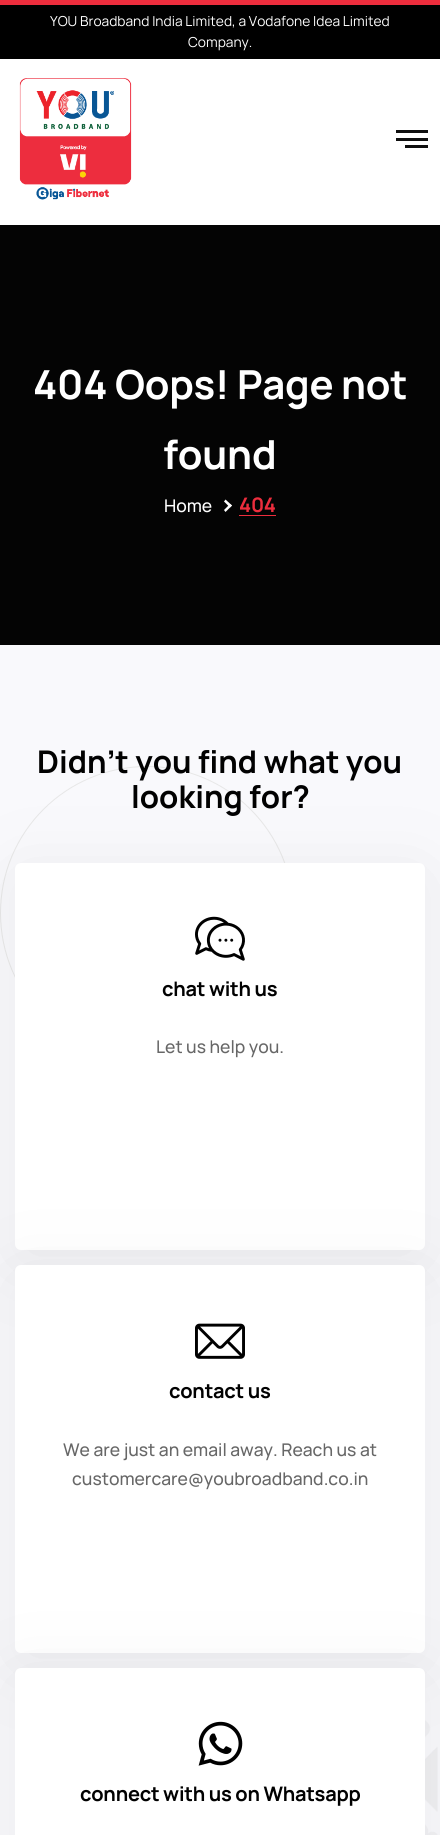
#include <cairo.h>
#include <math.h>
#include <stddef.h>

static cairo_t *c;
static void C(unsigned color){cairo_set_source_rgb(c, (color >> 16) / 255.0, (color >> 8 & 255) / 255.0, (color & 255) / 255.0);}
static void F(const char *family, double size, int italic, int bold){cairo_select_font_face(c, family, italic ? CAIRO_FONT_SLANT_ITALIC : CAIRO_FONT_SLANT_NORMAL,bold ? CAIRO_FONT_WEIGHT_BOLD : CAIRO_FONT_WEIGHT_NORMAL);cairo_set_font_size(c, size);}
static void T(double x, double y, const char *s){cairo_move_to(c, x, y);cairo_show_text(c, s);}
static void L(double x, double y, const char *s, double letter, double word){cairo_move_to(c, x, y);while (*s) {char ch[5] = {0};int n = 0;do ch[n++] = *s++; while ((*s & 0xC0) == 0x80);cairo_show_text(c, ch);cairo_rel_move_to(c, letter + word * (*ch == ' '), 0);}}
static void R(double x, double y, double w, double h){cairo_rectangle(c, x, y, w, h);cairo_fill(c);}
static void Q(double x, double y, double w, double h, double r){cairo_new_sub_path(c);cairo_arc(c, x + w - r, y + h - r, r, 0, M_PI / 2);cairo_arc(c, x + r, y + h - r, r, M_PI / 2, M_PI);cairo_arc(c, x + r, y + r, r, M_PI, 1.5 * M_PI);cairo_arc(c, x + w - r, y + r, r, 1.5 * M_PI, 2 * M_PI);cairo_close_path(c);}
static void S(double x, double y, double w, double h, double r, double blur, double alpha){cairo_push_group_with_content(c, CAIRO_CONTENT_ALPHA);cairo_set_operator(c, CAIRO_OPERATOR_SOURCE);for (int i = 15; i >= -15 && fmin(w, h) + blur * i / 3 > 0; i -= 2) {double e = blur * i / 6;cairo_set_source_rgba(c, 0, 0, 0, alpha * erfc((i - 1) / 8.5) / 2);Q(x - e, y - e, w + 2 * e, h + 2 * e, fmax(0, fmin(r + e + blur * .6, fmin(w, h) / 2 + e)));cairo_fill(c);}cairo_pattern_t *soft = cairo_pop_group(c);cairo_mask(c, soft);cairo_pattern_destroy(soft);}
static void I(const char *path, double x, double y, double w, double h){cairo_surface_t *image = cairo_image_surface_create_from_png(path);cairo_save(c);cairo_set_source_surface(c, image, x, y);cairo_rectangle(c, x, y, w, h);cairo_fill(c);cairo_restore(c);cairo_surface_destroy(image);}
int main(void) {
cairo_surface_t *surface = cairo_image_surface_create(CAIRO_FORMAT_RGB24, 440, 1835);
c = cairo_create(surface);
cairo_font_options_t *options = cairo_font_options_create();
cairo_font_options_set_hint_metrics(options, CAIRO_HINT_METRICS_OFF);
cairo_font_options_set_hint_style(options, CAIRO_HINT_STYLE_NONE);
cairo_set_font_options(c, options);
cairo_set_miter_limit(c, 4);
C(0xffffff);
cairo_paint(c);
C(0xed2d3d);
R(0,0,440,5);
C(0x000000);
R(0,5,440,54);
F("Manrope",13.75,0,0);
C(0xffffff);
T(50,26,"YOU Broadband India Limited, a Vodafone Idea Limited");
T(188,47,"Company.");
I("1.png",19,78,113,122);
C(0x0f0f0f);
R(396,130,32,3);
R(396,138,32,3);
R(405,145,23,3);
C(0x040404);
R(0,225,440,420);
F("Manrope",40,0,1);
C(0xffffff);
L(33,399,"404 Oops! Page not",-.25,0);
L(163,469,"found",-.25,0);
F("Manrope Medium",17.5,0,0);
T(164,512,"Home");
cairo_new_path(c);
cairo_move_to(c,225.5,499.5);
cairo_line_to(c,232,505.5);
cairo_line_to(c,230,507.5);
cairo_line_to(c,224,501.5);
cairo_close_path(c);
cairo_fill(c);
cairo_new_path(c);
cairo_move_to(c,230,504);
cairo_line_to(c,232,505.5);
cairo_line_to(c,225.5,512);
cairo_line_to(c,224,510);
cairo_close_path(c);
cairo_fill(c);
C(0xed2d3d);
R(239,515,37,1);
F("Manrope",20,0,1);
L(239,512,"404",-.25,0);
C(0xf9f9fc);
R(0,645,440,1190);
cairo_new_path(c);
cairo_arc(c,147,913,146.5,0,2 * M_PI);
C(0xe7e7e7);
cairo_set_line_width(c,1);
cairo_stroke(c);
F("Manrope",31.25,0,1);
C(0x010101);
T(37,773,"Didn’t you find what you");
T(131,808,"looking for?");
C(0x636363);
S(15,875,410,388,6,37.5,.1);
C(0xffffff);
Q(15,863,410,387,6);
cairo_fill(c);
I("2.png",195,916,50,45);
F("Manrope",20,0,1);
C(0x010101);
L(162,996,"chat with us",-.25,0);
F("Manrope Medium",17.5,0,0);
C(0x676767);
T(156,1053,"Let us help you.");
I("5.png",425,1720,13,115);
C(0x636363);
S(15,1278,410,387,6,37.5,.1);
C(0xffffff);
Q(15,1265,410,388,6);
cairo_fill(c);
I("3.png",195,1323,50,36);
F("Manrope",20,0,1);
C(0x010101);
L(169,1398,"contact us",-.25,0);
F("Manrope Medium",17.5,0,0);
C(0x676767);
T(63,1456,"We are just an email away. Reach us at");
T(72,1485,"customercare@youbroadband.co.in");
C(0x636363);
S(15,1680,410,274,6,37.5,.1);
C(0xffffff);
Q(15,1668,410,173,6);
cairo_fill(c);
I("4.png",198,1721,45,45);
F("Manrope",20,0,1);
C(0x010101);
L(80,1801,"connect with us on Whatsapp",-.25,0);
cairo_surface_write_to_png(surface, "o.png");
cairo_font_options_destroy(options);
cairo_destroy(c);
cairo_surface_destroy(surface);
return 0;
}
